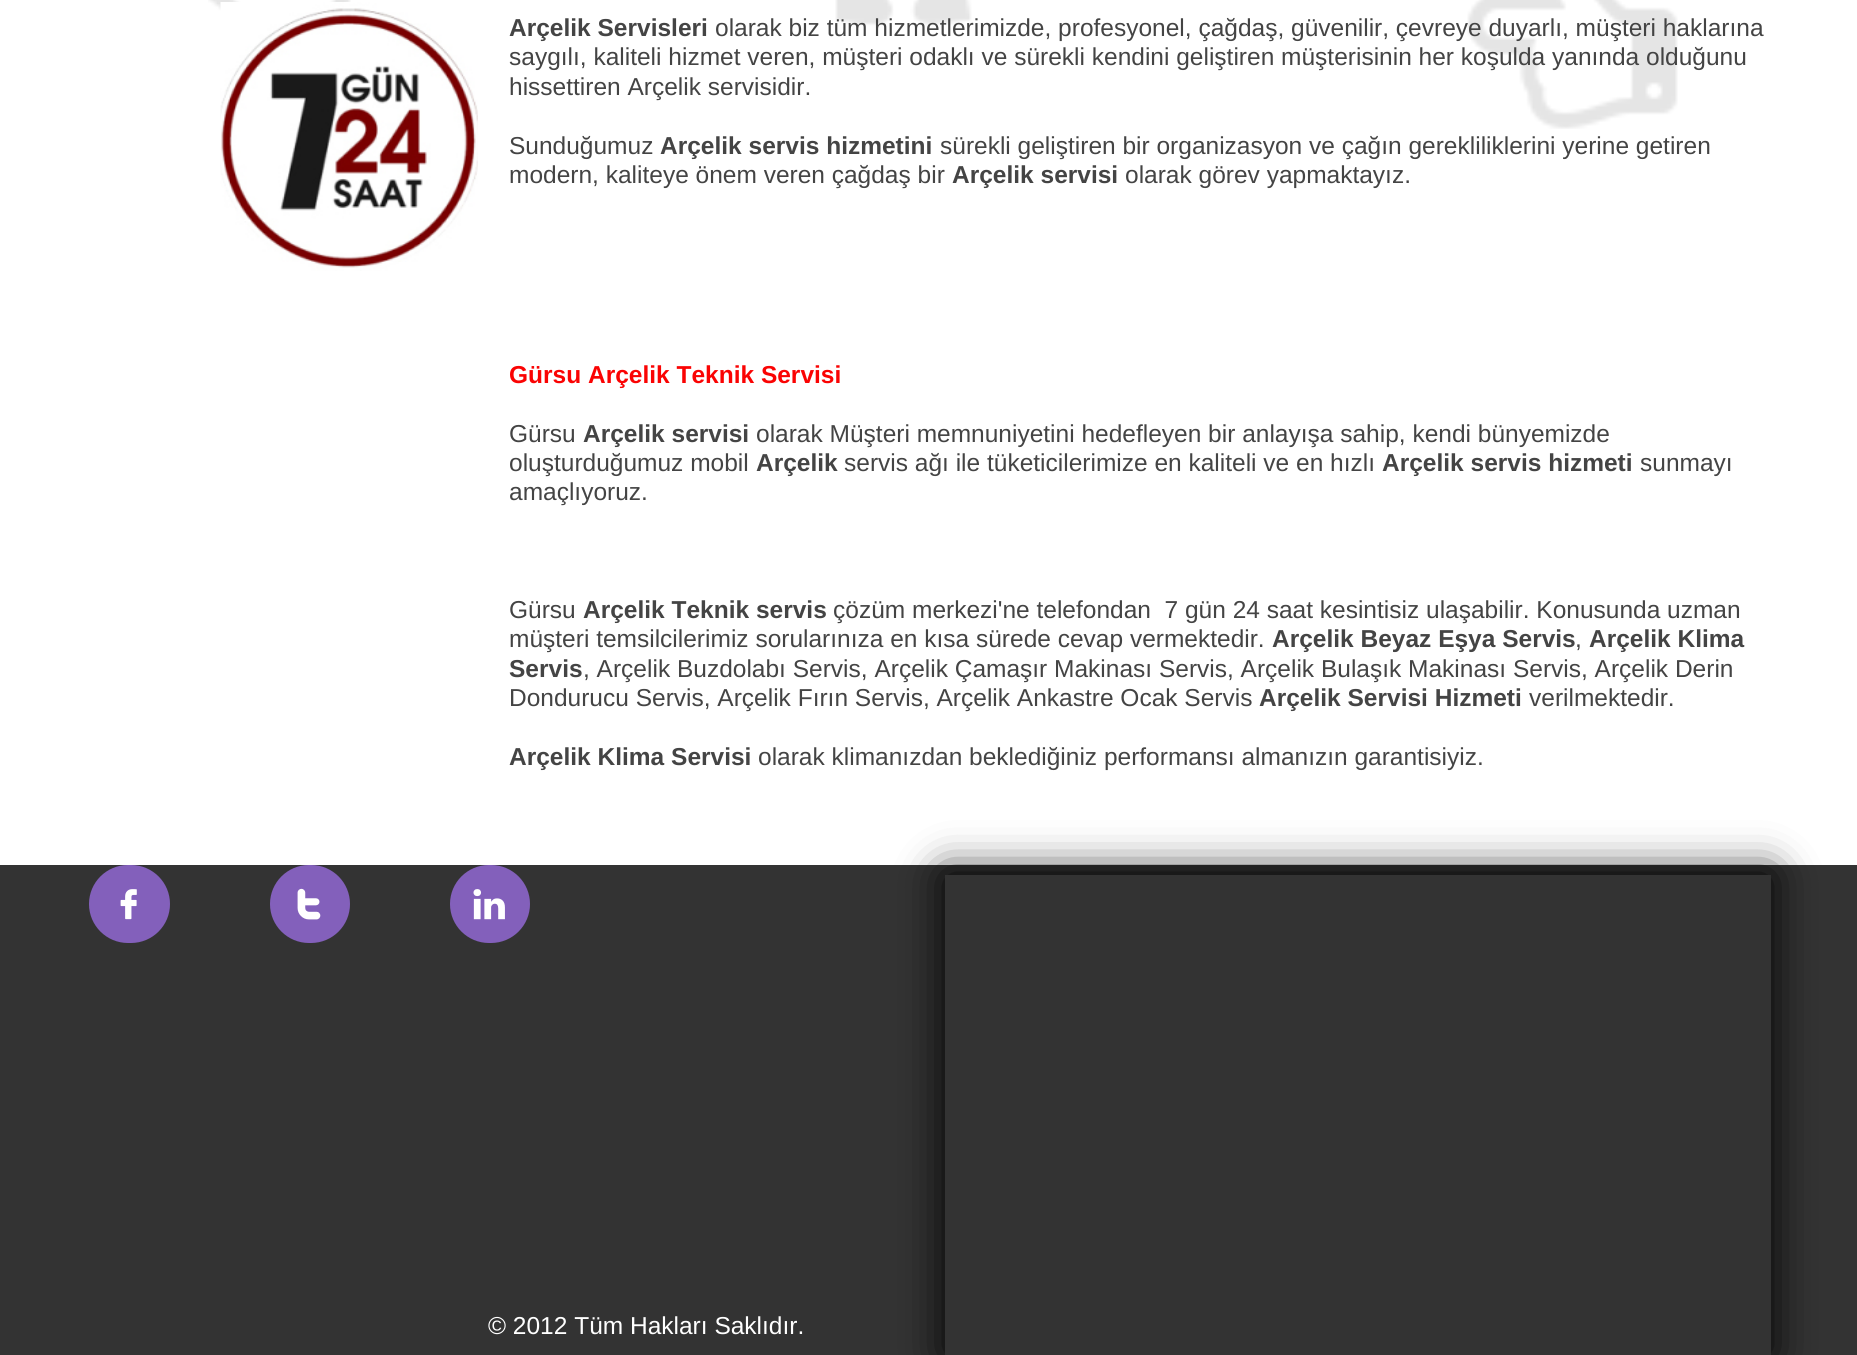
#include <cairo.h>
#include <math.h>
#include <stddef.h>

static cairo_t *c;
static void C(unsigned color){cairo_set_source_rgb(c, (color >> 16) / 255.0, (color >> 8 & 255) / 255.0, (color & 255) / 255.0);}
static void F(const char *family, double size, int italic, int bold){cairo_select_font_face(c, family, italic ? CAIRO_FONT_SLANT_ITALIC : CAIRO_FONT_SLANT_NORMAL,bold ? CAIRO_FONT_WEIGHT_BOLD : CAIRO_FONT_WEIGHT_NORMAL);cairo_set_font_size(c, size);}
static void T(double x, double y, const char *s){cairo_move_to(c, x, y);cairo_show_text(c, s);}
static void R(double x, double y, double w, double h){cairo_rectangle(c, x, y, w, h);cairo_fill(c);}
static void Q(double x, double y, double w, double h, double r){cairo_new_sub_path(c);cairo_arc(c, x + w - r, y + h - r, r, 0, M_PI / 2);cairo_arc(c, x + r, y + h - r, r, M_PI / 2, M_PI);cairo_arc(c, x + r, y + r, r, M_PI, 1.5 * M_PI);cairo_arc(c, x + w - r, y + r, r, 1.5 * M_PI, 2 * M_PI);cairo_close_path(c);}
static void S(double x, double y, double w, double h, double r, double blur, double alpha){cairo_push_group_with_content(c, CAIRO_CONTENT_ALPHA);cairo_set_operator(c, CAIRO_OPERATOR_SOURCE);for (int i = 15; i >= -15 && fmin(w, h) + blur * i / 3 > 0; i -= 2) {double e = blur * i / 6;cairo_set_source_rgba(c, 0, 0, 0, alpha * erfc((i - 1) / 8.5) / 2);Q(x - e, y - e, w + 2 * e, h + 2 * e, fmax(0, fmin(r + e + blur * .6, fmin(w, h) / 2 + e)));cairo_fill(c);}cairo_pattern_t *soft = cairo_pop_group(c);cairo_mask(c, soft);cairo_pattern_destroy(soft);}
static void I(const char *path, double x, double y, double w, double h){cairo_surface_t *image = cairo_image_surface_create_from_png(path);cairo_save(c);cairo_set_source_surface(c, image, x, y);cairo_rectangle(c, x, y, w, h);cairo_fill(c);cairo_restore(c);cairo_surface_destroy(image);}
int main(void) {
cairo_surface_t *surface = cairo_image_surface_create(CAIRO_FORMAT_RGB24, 1857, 1355);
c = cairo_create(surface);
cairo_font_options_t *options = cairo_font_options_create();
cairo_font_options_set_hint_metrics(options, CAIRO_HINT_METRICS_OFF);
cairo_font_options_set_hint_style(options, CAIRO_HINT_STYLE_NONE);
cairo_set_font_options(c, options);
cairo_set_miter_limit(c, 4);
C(0xffffff);
cairo_paint(c);
I("1.png",208,0,1470,129);
I("2.png",220,2,258,269);
F("Liberation Sans",24.5,0,1);
C(0x444444);
T(509,36,"Arçelik Servisleri");
F("Liberation Sans",24.5,0,0);
T(715,36,"olarak biz tüm hizmetlerimizde, profesyonel, çağdaş, güvenilir, çevreye duyarlı, müşteri haklarına");
T(509,65,"saygılı, kaliteli hizmet veren, müşteri odaklı ve sürekli kendini geliştiren müşterisinin her koşulda yanında olduğunu");
T(509,95,"hissettiren Arçelik servisidir.");
T(509,154,"Sunduğumuz");
F("Liberation Sans",24.5,0,1);
T(660,154,"Arçelik servis hizmetini");
F("Liberation Sans",24.5,0,0);
T(940,154,"sürekli geliştiren bir organizasyon ve çağın gerekliliklerini yerine getiren");
T(509,183,"modern, kaliteye önem veren çağdaş bir");
F("Liberation Sans",24.5,0,1);
T(952,183,"Arçelik servisi");
F("Liberation Sans",24.5,0,0);
T(1125,183,"olarak görev yapmaktayız.");
F("Liberation Sans",24.5,0,1);
C(0xfa0303);
T(509,383,"Gürsu Arçelik Teknik Servisi");
F("Liberation Sans",24.5,0,0);
C(0x444444);
T(509,442,"Gürsu");
F("Liberation Sans",24.5,0,1);
T(583,442,"Arçelik servisi");
F("Liberation Sans",24.5,0,0);
T(756,442,"olarak Müşteri memnuniyetini hedefleyen bir anlayışa sahip, kendi bünyemizde");
T(509,471,"oluşturduğumuz mobil");
F("Liberation Sans",24.5,0,1);
T(756,471,"Arçelik");
F("Liberation Sans",24.5,0,0);
T(844,471,"servis ağı ile tüketicilerimize en kaliteli ve en hızlı");
F("Liberation Sans",24.5,0,1);
T(1382,471,"Arçelik servis hizmeti");
F("Liberation Sans",24.5,0,0);
T(1640,471,"sunmayı");
T(509,500,"amaçlıyoruz.");
T(509,618,"Gürsu");
F("Liberation Sans",24.5,0,1);
T(583,618,"Arçelik Teknik servis");
F("Liberation Sans",24.5,0,0);
T(833,618,"çözüm merkezi'ne telefondan  7 gün 24 saat kesintisiz ulaşabilir. Konusunda uzman");
T(509,647,"müşteri temsilcilerimiz sorularınıza en kısa sürede cevap vermektedir.");
F("Liberation Sans",24.5,0,1);
T(1272,647,"Arçelik Beyaz Eşya Servis");
F("Liberation Sans",24.5,0,0);
T(1575,647,",");
F("Liberation Sans",24.5,0,1);
T(1589,647,"Arçelik Klima");
T(509,677,"Servis");
F("Liberation Sans",24.5,0,0);
T(583,677,", Arçelik Buzdolabı Servis, Arçelik Çamaşır Makinası Servis, Arçelik Bulaşık Makinası Servis, Arçelik Derin");
T(509,706,"Dondurucu Servis, Arçelik Fırın Servis, Arçelik Ankastre Ocak Servis");
F("Liberation Sans",24.5,0,1);
T(1259,706,"Arçelik Servisi Hizmeti");
F("Liberation Sans",24.5,0,0);
T(1529,706,"verilmektedir.");
F("Liberation Sans",24.5,0,1);
T(509,765,"Arçelik Klima Servisi");
F("Liberation Sans",24.5,0,0);
T(758,765,"olarak klimanızdan beklediğiniz performansı almanızın garantisiyiz.");
C(0x333333);
R(0,865,1857,490);
C(0x8360bb);
Q(89,865,81,78,39);
cairo_fill(c);
I("3.png",120,889,17,31);
Q(270,865,80,78,39);
cairo_fill(c);
I("4.png",297,888,24,32);
Q(450,865,80,78,39);
cairo_fill(c);
I("5.png",473,889,32,31);
cairo_save(c);
cairo_set_fill_rule(c,CAIRO_FILL_RULE_EVEN_ODD);
cairo_new_path(c);
cairo_move_to(c,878,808);
cairo_line_to(c,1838,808);
cairo_line_to(c,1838,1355);
cairo_line_to(c,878,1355);
cairo_close_path(c);
cairo_move_to(c,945,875);
cairo_line_to(c,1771,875);
cairo_line_to(c,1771,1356);
cairo_line_to(c,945,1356);
cairo_close_path(c);
cairo_clip(c);
C(0x000000);
S(945,875,826,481,0,22,1);
cairo_restore(c);
C(0xffffff);
T(488,1334,"© 2012 Tüm Hakları Saklıdır.");
cairo_surface_write_to_png(surface, "o.png");
cairo_font_options_destroy(options);
cairo_destroy(c);
cairo_surface_destroy(surface);
return 0;
}
